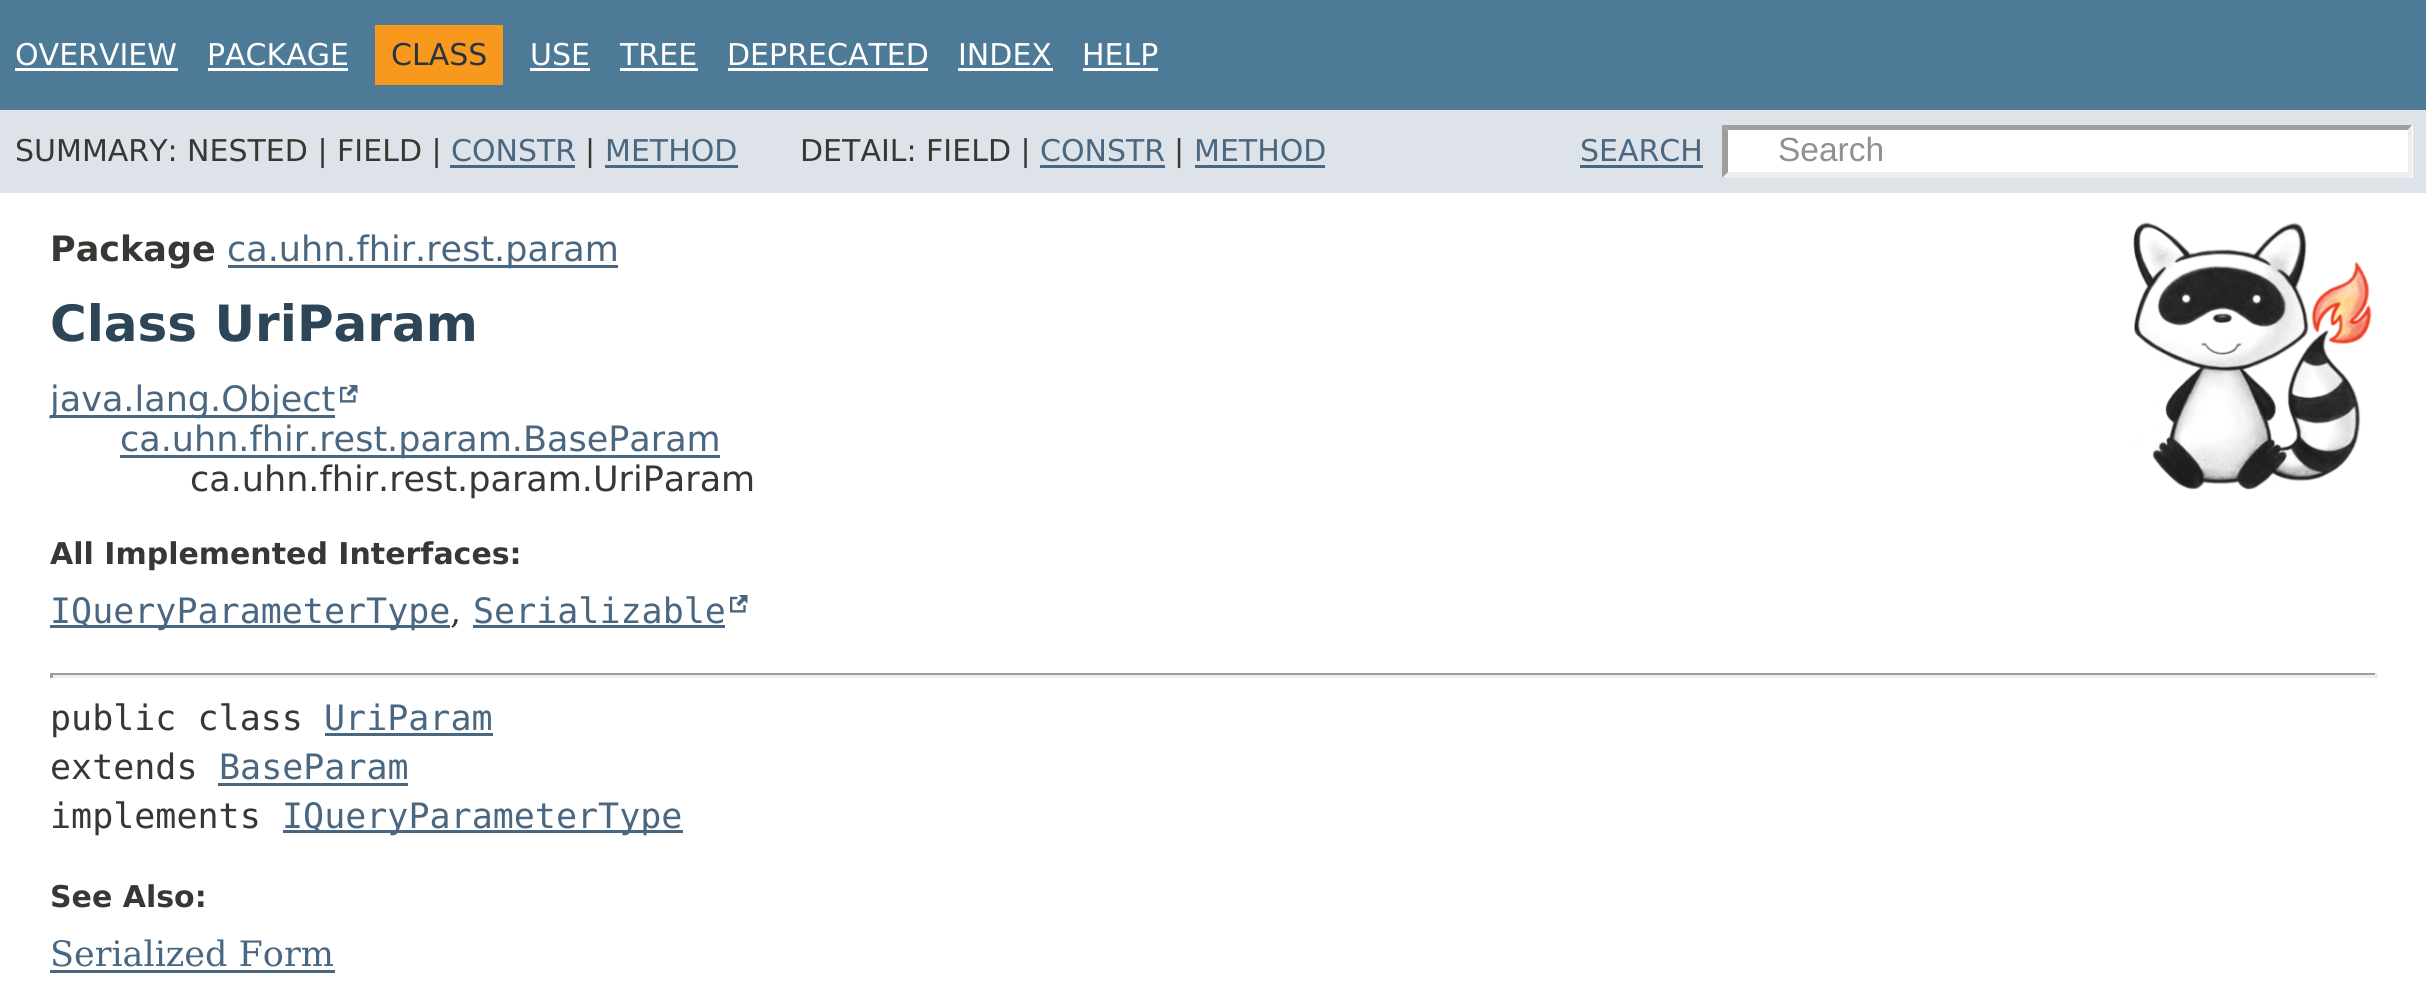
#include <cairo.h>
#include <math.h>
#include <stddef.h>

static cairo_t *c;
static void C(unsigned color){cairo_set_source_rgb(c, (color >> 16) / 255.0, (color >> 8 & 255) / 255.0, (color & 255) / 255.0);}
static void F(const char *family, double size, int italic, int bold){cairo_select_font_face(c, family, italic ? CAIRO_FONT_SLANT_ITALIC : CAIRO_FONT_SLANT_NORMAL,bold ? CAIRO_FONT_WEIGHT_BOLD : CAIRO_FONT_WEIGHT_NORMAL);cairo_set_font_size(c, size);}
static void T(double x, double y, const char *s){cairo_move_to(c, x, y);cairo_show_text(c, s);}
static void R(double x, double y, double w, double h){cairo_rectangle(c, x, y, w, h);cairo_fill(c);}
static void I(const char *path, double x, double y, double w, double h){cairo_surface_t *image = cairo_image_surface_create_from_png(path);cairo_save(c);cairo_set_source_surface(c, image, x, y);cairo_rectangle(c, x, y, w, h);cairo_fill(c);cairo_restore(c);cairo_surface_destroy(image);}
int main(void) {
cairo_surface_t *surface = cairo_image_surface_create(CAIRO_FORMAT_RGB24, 2426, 999);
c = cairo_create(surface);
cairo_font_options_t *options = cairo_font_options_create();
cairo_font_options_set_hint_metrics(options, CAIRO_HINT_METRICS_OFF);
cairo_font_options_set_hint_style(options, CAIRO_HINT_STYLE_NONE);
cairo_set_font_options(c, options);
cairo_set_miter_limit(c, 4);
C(0xffffff);
cairo_paint(c);
C(0x4d7a97);
R(0,0,2426,110);
F("DejaVu Sans",30,0,0);
C(0xffffff);
T(15,65,"OVERVIEW");
R(15,68,163,3);
T(207,65,"PACKAGE");
R(208,68,140,3);
C(0xf8981d);
R(375,25,128,60);
C(0x253441);
T(391,65,"CLASS");
C(0xffffff);
T(530,65,"USE");
R(530,68,60,3);
T(620,65,"TREE");
R(620,68,78,3);
T(727,65,"DEPRECATED");
R(728,68,200,3);
T(958,65,"INDEX");
R(958,68,95,3);
T(1082,65,"HELP");
R(1083,68,75,3);
C(0xdee3e9);
R(0,110,2426,83);
C(0x353833);
T(15,161,"SUMMARY: NESTED | FIELD |");
C(0x4a6782);
T(451,161,"CONSTR");
R(450,165,125,3);
C(0x353833);
T(585,161,"|");
C(0x4a6782);
T(605,161,"METHOD");
R(605,165,133,3);
C(0x353833);
T(800,161,"DETAIL: FIELD |");
C(0x4a6782);
T(1040,161,"CONSTR");
R(1040,165,125,3);
C(0x353833);
T(1174,161,"|");
C(0x4a6782);
T(1194,161,"METHOD");
R(1195,165,130,3);
T(1580,161,"SEARCH");
R(1580,165,123,3);
C(0xffffff);
R(1723,125,690,53);
C(0x9e9e9e);
cairo_new_path(c);
cairo_move_to(c,1722,125);
cairo_line_to(c,2412,125);
cairo_line_to(c,2408,130);
cairo_line_to(c,1728,130);
cairo_close_path(c);
cairo_fill(c);
C(0xededed);
cairo_new_path(c);
cairo_move_to(c,2412,125);
cairo_line_to(c,2412,178);
cairo_line_to(c,2408,172);
cairo_line_to(c,2408,130);
cairo_close_path(c);
cairo_fill(c);
cairo_new_path(c);
cairo_move_to(c,2412,178);
cairo_line_to(c,1722,178);
cairo_line_to(c,1728,172);
cairo_line_to(c,2408,172);
cairo_close_path(c);
cairo_fill(c);
C(0x9e9e9e);
cairo_new_path(c);
cairo_move_to(c,1722,178);
cairo_line_to(c,1722,125);
cairo_line_to(c,1728,130);
cairo_line_to(c,1728,172);
cairo_close_path(c);
cairo_fill(c);
F("Liberation Sans",33.5,0,0);
C(0x909090);
T(1778,161,"Search");
F("DejaVu Sans",35,0,1);
C(0x353833);
T(50,261,"Package");
C(0x4a6782);
R(228,265,390,3);
F("DejaVu Sans",35,0,0);
T(227,261,"ca.uhn.fhir.rest.param");
F("DejaVu Sans",50,0,1);
C(0x2c4557);
T(50,341,"Class UriParam");
I("1.png",2133,222,239,268);
C(0x4a6782);
R(50,415,285,3);
F("DejaVu Sans",35,0,0);
T(50,411,"java.lang.Object");
I("2.png",340,385,18,18);
R(120,455,600,3);
T(120,451,"ca.uhn.fhir.rest.param.BaseParam");
C(0x353833);
T(190,491,"ca.uhn.fhir.rest.param.UriParam");
F("DejaVu Sans",30,0,1);
T(50,564,"All Implemented Interfaces:");
C(0x4a6782);
R(50,625,400,3);
F("DejaVu Sans Mono",35,0,0);
T(50,623,"IQueryParameterType");
F("DejaVu Serif",35,0,0);
C(0x353833);
T(450,623,",");
F("DejaVu Sans Mono",35,0,0);
C(0x4a6782);
T(473,623,"Serializable");
R(473,625,252,3);
I("2.png",730,595,18,18);
C(0x9f9f9f);
R(50,673,2328,2);
C(0xeeeeee);
R(2375,673,3,5);
R(50,675,2328,3);
C(0x9f9f9f);
R(50,673,3,5);
C(0x353833);
T(50,730,"public class");
C(0x4a6782);
T(324,730,"UriParam");
R(325,733,168,3);
C(0x353833);
T(50,779,"extends");
C(0x4a6782);
T(219,779,"BaseParam");
R(218,783,190,3);
C(0x353833);
T(50,828,"implements");
C(0x4a6782);
R(283,830,400,3);
T(282,828,"IQueryParameterType");
F("DejaVu Sans",30,0,1);
C(0x353833);
T(50,907,"See Also:");
F("DejaVu Serif",35,0,0);
C(0x4a6782);
T(50,966,"Serialized Form");
R(50,970,285,3);
cairo_surface_write_to_png(surface, "o.png");
cairo_font_options_destroy(options);
cairo_destroy(c);
cairo_surface_destroy(surface);
return 0;
}
